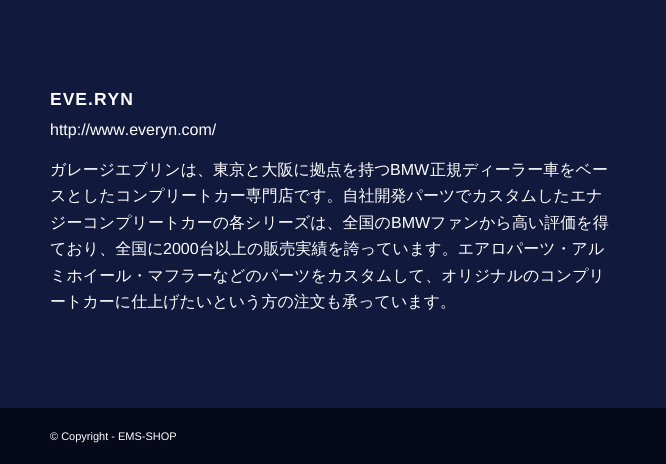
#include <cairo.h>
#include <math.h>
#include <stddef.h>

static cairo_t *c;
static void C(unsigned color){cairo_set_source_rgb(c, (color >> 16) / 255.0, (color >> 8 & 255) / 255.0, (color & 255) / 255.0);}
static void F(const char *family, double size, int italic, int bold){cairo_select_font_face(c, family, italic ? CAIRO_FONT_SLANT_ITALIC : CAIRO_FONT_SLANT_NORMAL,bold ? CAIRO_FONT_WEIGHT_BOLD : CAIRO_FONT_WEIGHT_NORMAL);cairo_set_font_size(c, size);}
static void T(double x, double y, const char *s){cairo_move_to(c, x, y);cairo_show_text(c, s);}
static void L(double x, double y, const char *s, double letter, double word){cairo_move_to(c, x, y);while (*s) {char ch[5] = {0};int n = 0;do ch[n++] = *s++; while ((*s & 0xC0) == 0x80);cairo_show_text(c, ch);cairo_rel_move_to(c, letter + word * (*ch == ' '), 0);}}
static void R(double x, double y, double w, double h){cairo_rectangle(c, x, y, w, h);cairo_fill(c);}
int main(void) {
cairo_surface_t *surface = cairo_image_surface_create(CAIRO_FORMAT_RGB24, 666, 464);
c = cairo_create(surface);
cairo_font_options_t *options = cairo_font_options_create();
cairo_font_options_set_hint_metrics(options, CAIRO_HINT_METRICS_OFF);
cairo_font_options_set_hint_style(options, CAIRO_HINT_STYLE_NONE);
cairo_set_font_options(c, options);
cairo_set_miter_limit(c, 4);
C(0x11193d);
cairo_paint(c);
F("Liberation Sans",17.5,0,1);
C(0xffffff);
L(50,105,"EVE.RYN",1,0);
F("Liberation Sans",16,0,0);
T(50,135,"http://www.everyn.com/");
F("WenQuanYi Zen Hei Medium",16,0,0);
T(50,175,"ガレージエブリンは、東京と大阪に拠点を持つ");
F("Liberation Sans",16,0,0);
T(390,175,"BMW");
F("WenQuanYi Zen Hei Medium",16,0,0);
T(430,175,"正規ディーラー車をベー");
T(50,201,"スとしたコンプリートカー専門店です。自社開発パーツでカスタムしたエナ");
T(50,228,"ジーコンプリートカーの各シリーズは、全国の");
F("Liberation Sans",16,0,0);
T(391,228,"BMW");
F("WenQuanYi Zen Hei Medium",16,0,0);
T(430,228,"ファンから高い評価を得");
T(50,254,"ており、全国に");
F("Liberation Sans",16,0,0);
T(163,254,"2000");
F("WenQuanYi Zen Hei Medium",16,0,0);
T(199,254,"台以上の販売実績を誇っています。エアロパーツ・アル");
T(50,281,"ミホイール・マフラーなどのパーツをカスタムして、オリジナルのコンプリ");
T(50,307,"ートカーに仕上げたいという方の注文も承っています。");
C(0x05091a);
R(0,408,666,56);
F("Liberation Sans",11,0,0);
C(0xffffff);
T(50,440,"© Copyright - EMS-SHOP");
cairo_surface_write_to_png(surface, "o.png");
cairo_font_options_destroy(options);
cairo_destroy(c);
cairo_surface_destroy(surface);
return 0;
}
